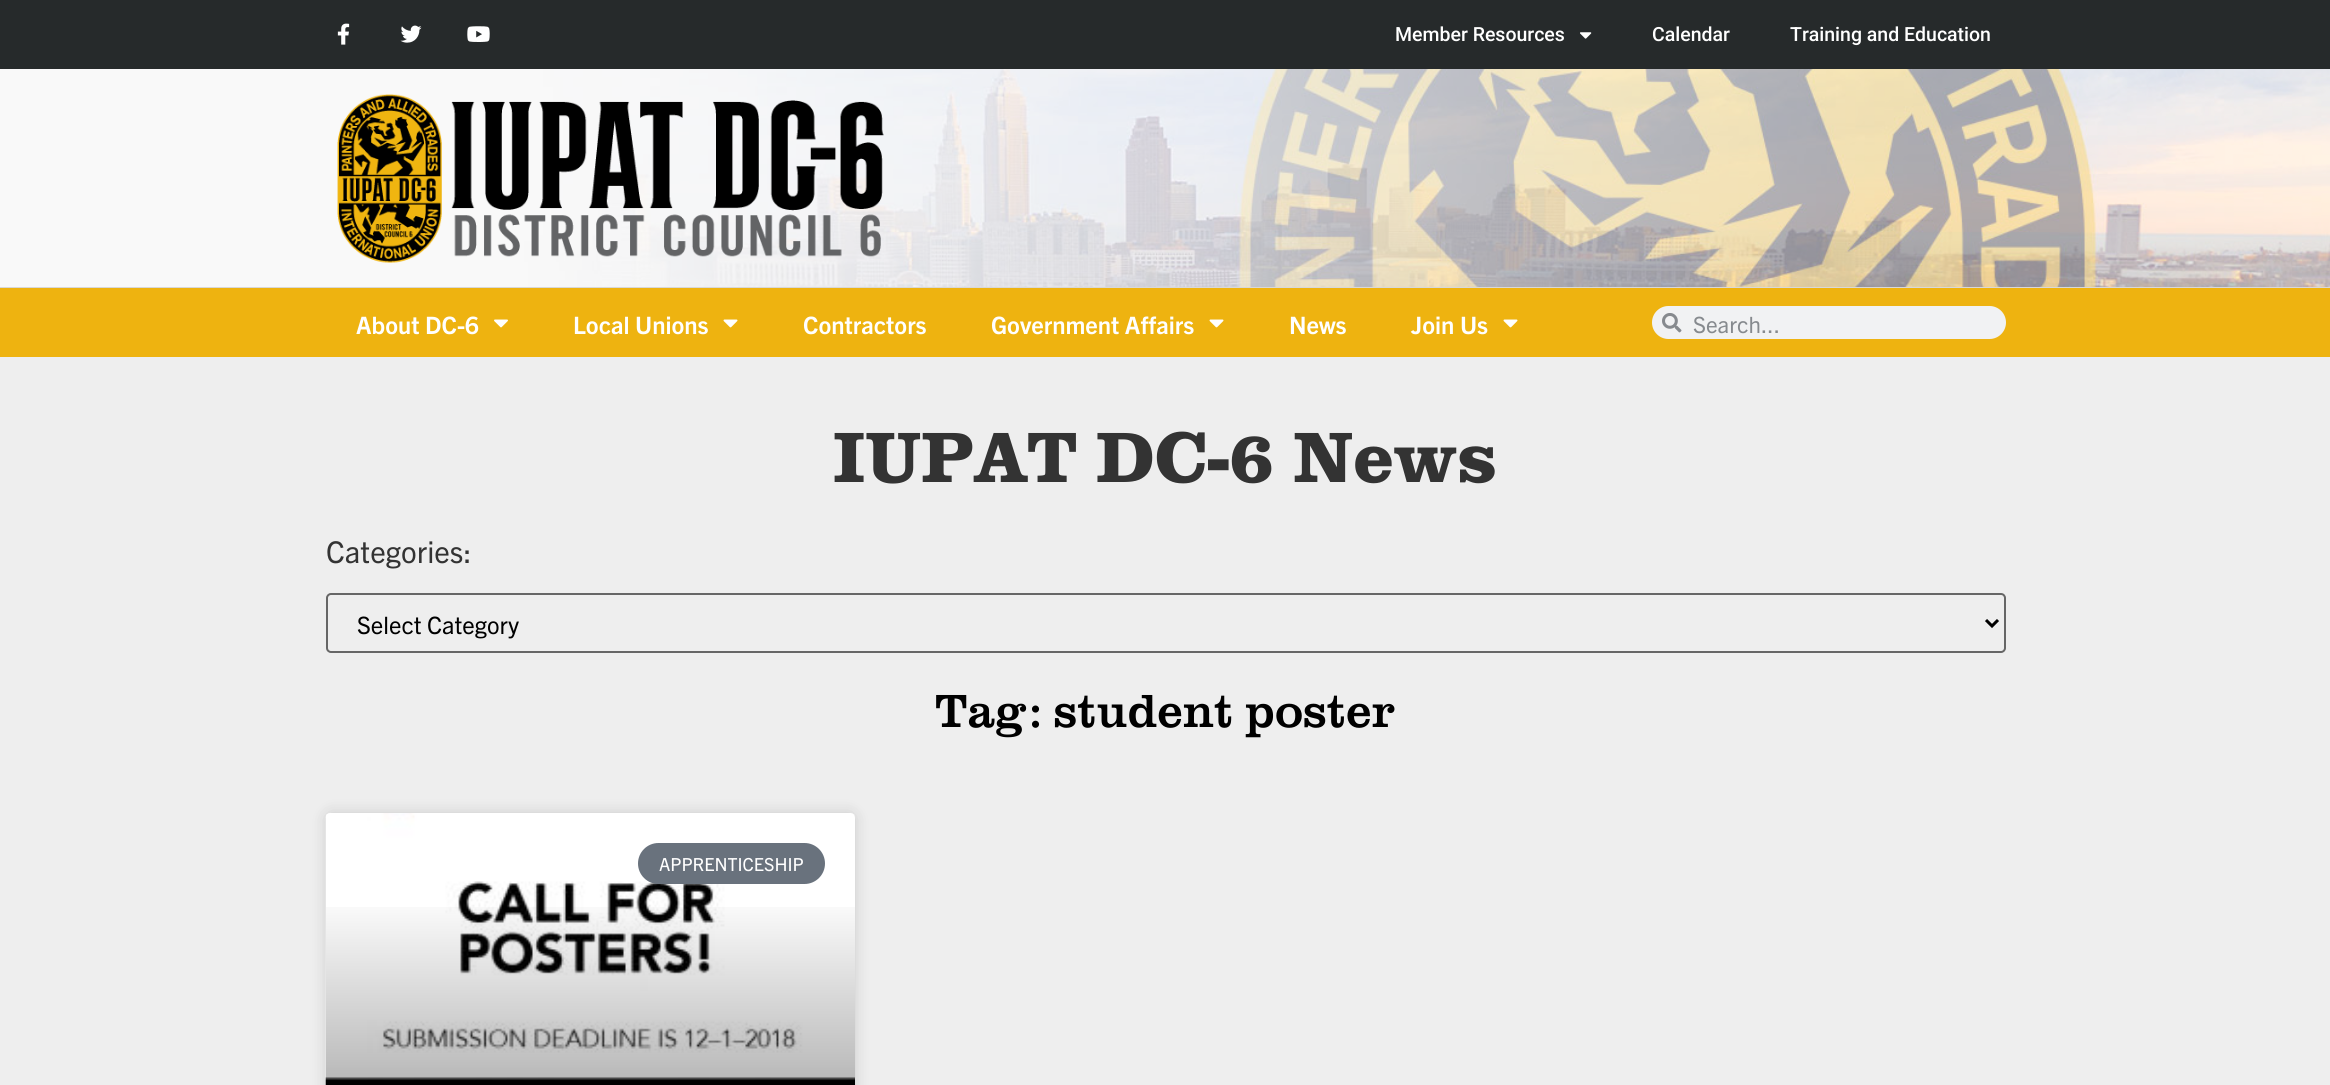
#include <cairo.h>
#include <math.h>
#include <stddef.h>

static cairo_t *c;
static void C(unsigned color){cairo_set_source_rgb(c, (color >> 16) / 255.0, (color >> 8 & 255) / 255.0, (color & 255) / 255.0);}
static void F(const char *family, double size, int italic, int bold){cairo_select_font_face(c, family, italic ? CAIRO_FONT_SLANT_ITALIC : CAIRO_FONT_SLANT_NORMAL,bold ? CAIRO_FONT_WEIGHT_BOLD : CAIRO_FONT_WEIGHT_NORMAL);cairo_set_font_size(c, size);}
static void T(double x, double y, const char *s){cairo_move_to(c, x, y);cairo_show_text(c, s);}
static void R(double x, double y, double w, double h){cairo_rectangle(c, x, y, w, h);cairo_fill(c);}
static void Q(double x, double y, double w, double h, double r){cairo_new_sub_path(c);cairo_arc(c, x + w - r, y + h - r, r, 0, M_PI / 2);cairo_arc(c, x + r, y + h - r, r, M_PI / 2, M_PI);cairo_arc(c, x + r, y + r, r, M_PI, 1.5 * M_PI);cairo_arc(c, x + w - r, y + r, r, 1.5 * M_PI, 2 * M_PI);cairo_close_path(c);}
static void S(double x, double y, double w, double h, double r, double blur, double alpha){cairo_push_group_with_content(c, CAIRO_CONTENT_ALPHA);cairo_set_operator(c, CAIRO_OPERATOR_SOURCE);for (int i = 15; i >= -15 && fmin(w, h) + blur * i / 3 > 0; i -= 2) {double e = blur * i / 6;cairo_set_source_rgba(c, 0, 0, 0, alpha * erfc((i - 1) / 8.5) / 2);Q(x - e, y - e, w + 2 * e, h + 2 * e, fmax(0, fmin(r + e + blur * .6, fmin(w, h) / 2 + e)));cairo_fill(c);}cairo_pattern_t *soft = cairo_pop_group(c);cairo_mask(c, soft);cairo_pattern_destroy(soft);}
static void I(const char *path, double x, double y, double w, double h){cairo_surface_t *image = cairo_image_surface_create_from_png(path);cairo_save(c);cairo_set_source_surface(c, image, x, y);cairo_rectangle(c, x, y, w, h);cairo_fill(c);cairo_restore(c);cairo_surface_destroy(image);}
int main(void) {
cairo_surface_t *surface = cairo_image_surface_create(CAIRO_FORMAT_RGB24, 2330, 1085);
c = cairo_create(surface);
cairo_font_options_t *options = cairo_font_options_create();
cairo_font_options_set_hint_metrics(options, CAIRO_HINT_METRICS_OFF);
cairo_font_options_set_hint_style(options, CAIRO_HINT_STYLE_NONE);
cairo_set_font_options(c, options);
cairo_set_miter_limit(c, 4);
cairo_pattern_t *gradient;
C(0xffffff);
cairo_paint(c);
C(0x262a2b);
R(0,0,2330,69);
I("1.png",337,23,13,22);
I("2.png",400,25,22,18);
I("3.png",467,26,23,16);
F("Roboto Medium",19.5,0,0);
C(0xffffff);
T(1395,41,"Member Resources");
I("4.png",1580,32,12,7);
T(1652,41,"Calendar");
T(1790,41,"Training and Education");
I("5.png",0,69,2330,218);
C(0xd8d8d8);
R(0,287,2330,1);
I("6.png",337,94,547,169);
C(0xeeb310);
R(0,288,2330,69);
F("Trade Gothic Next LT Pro",24,0,1);
C(0xffffff);
T(356,334,"About DC-6");
I("7.png",494,319,14,9);
T(573,334,"Local Unions");
I("8.png",723,319,15,9);
T(803,334,"Contractors");
T(991,334,"Government Affairs");
I("8.png",1209,319,15,9);
T(1289,334,"News");
T(1411,334,"Join Us");
I("8.png",1503,319,15,9);
C(0xf1f2f3);
Q(1652,306,354,33,16.5);
cairo_fill(c);
I("9.png",1662,313,20,20);
F("Trade Gothic Next LT Pro",22.5,0,0);
C(0x868a8e);
T(1693,333,"Search...");
C(0xeeeeee);
R(0,357,2330,728);
F("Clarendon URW",73.5,0,1);
C(0x333333);
T(833,482,"IUPAT DC-6 News");
F("Trade Gothic Next LT Pro",30,0,0);
T(326,563,"Categories:");
Q(327,594,1678,58,4);
C(0x666666);
cairo_stroke(c);
cairo_new_path(c);
cairo_move_to(c,1986,620);
cairo_line_to(c,1992,626);
cairo_line_to(c,1998,620);
C(0x000000);
cairo_set_line_width(c,3);
cairo_stroke(c);
F("Trade Gothic Next LT Pro",24,0,0);
T(357,634,"Select Category");
F("Clarendon URW",48,0,0);
T(935,727,"Tag: student poster");
C(0x000000);
S(326,813,529,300,5,7.5,.15);
I("10.png",325,813,530,272);
gradient = cairo_pattern_create_linear(590,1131,590,813);
cairo_pattern_add_color_stop_rgba(gradient,0,0,0,0,.35);
cairo_pattern_add_color_stop_rgba(gradient,.75,0,0,0,0);
cairo_set_source(c,gradient);
cairo_pattern_destroy(gradient);
R(326,907,529,173);
C(0x69727d);
Q(638,843,187,41,20.5);
cairo_fill(c);
F("Trade Gothic Next LT Pro",18,0,0);
C(0xffffff);
T(659,871,"APPRENTICESHIP");
cairo_surface_write_to_png(surface, "o.png");
cairo_font_options_destroy(options);
cairo_destroy(c);
cairo_surface_destroy(surface);
return 0;
}
